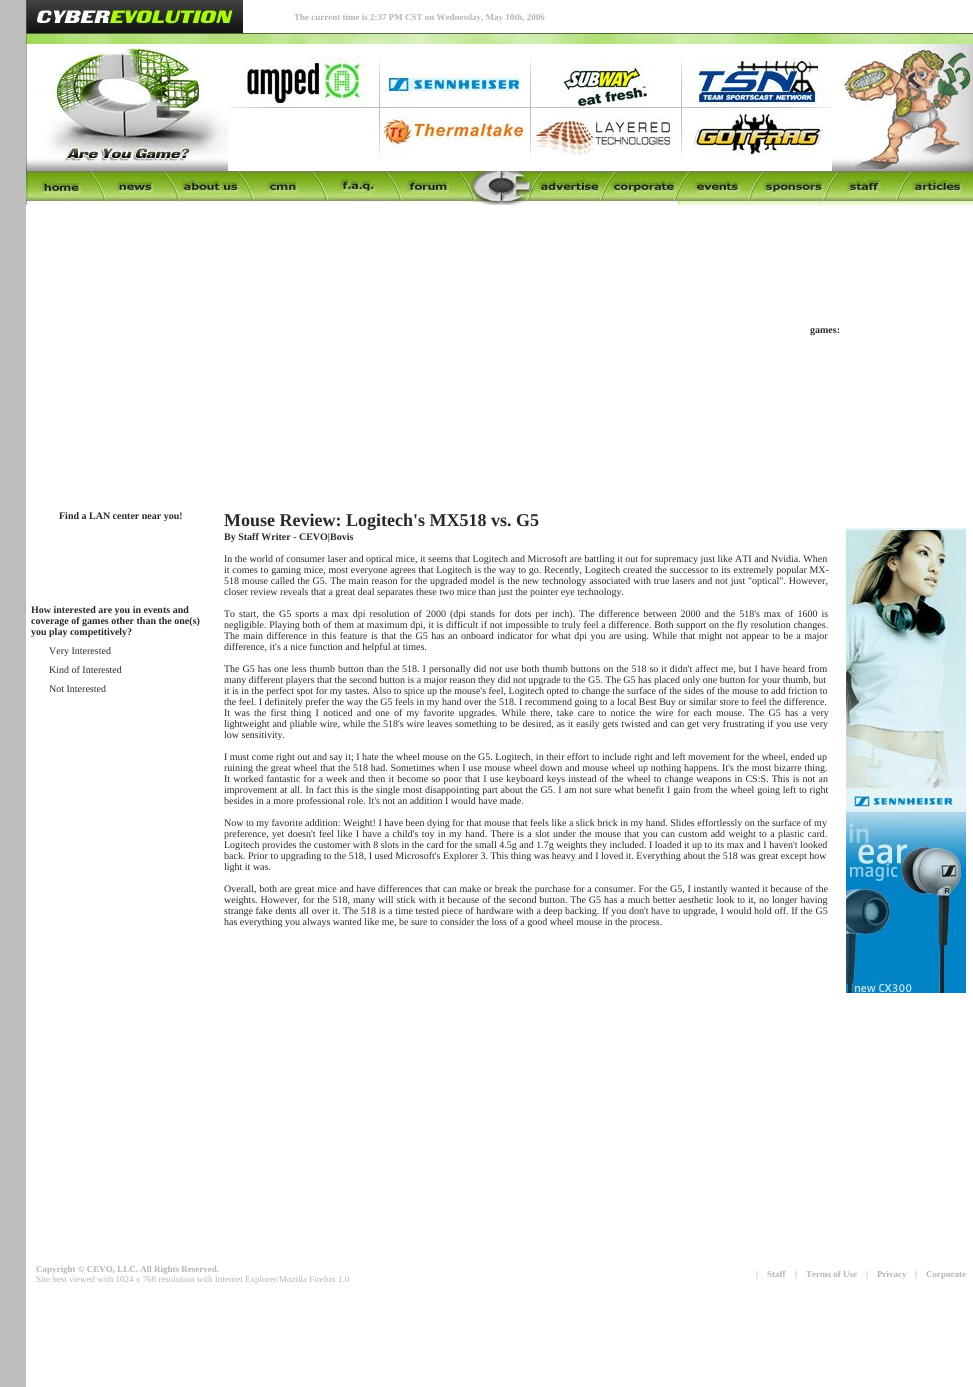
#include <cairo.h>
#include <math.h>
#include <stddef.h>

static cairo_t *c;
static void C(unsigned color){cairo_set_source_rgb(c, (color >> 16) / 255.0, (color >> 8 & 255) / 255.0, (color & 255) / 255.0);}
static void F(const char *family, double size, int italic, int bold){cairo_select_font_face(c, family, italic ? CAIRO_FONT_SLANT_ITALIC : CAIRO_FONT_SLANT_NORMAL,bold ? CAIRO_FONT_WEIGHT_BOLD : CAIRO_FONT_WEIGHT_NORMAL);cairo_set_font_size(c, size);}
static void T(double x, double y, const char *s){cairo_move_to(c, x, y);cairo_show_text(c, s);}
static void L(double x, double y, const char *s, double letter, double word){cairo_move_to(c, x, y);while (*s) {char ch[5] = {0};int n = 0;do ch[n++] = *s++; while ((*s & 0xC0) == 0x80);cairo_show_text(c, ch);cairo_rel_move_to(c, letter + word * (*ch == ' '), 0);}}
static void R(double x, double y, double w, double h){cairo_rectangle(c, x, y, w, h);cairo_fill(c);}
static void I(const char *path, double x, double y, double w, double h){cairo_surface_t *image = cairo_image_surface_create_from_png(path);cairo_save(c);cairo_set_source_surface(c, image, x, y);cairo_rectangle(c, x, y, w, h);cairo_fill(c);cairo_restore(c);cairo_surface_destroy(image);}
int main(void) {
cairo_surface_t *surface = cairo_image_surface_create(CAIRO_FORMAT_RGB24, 973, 1387);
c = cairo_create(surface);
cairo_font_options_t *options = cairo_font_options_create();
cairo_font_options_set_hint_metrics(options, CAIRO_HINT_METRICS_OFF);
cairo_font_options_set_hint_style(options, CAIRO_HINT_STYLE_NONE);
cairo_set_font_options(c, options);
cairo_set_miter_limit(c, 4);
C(0xbdbdbd);
cairo_paint(c);
C(0xffffff);
R(26,0,947,1387);
I("1.png",26,0,217,33);
F("Liberation Serif",9,0,1);
C(0xb4b4b4);
T(294,20,"The current time is 2:37 PM CST on Wednesday, May 10th, 2006");
I("2.png",26,33,947,11);
I("3.png",26,44,202,127);
I("4.png",245,57,124,49);
I("5.png",379,57,1,50);
I("6.png",380,72,144,33);
I("5.png",530,57,1,50);
I("7.png",563,57,88,50);
I("5.png",681,57,1,50);
I("8.png",697,57,129,49);
I("9.png",229,107,150,1);
C(0xbcbfb6);
R(379,107,303,1);
I("10.png",682,107,150,1);
I("11.png",379,108,1,50);
I("12.png",380,110,145,46);
I("11.png",530,108,1,50);
I("13.png",531,108,144,48);
I("11.png",681,108,1,50);
I("14.png",691,108,135,48);
I("15.png",832,44,141,127);
I("16.png",26,171,74,34);
I("17.png",100,171,74,32);
I("18.png",174,171,74,33);
I("19.png",248,171,74,32);
I("20.png",322,171,74,32);
I("21.png",396,171,74,32);
I("22.png",470,171,62,34);
I("23.png",532,171,74,32);
I("24.png",606,171,74,34);
I("25.png",680,171,74,34);
I("26.png",754,171,74,34);
I("27.png",828,171,74,34);
I("28.png",902,171,71,34);
F("Liberation Serif",10,0,1);
C(0x292929);
T(810,333,"games:");
T(59,519,"Find a LAN center near you!");
T(31,613,"How interested are you in events and");
T(31,624,"coverage of games other than the one(s)");
T(31,635,"you play competitively?");
F("Liberation Serif",10,0,0);
T(49,654,"Very Interested");
T(49,673,"Kind of Interested");
T(49,692,"Not Interested");
F("Liberation Serif",18,0,1);
T(224,526,"Mouse Review: Logitech's MX518 vs. G5");
F("Liberation Serif",10,0,1);
T(224,540,"By Staff Writer - CEVO|Bovis");
F("Liberation Serif",10,0,0);
T(224,562,"In the world of consumer laser and optical mice, it seems that Logitech and Microsoft are battling it out for supremacy just like ATI and Nvidia. When");
L(224,573,"it comes to gaming mice, most everyone agrees that Logitech is the way to go. Recently, Logitech created the successor to its extremely popular MX-",0,.25);
L(224,584,"518 mouse called the G5. The main reason for the upgraded model is the new technology associated with true lasers and not just \"optical\". However,",0,.35);
T(224,595,"closer review reveals that a great deal separates these two mice than just the pointer eye technology.");
L(224,617,"To start, the G5 sports a max dpi resolution of 2000 (dpi stands for dots per inch). The difference between 2000 and the 518's max of 1600 is",0,1.5);
L(224,628,"negligible. Playing both of them at maximum dpi, it is difficult if not impossible to truly feel a difference. Both support on the fly resolution changes.",0,.25);
L(224,639,"The main difference in this feature is that the G5 has an onboard indicator for what dpi you are using. While that might not appear to be a major",0,1);
T(224,650,"difference, it's a nice function and helpful at times.");
L(224,672,"The G5 has one less thumb button than the 518. I personally did not use both thumb buttons on the 518 so it didn't affect me, but I have heard from",0,.5);
T(224,683,"many different players that the second button is a major reason they did not upgrade to the G5. The G5 has placed only one button for your thumb, but");
T(224,694,"it is in the perfect spot for my tastes. Also to spice up the mouse's feel, Logitech opted to change the surface of the sides of the mouse to add friction to");
T(224,705,"the feel. I definitely prefer the way the G5 feels in my hand over the 518. I recommend going to a local Best Buy or similar store to feel the difference.");
L(224,716,"It was the first thing I noticed and one of my favorite upgrades. While there, take care to notice the wire for each mouse. The G5 has a very",0,1.7);
L(224,727,"lightweight and pliable wire, while the 518's wire leaves something to be desired, as it easily gets twisted and can get very frustrating if you use very",0,.35);
T(224,738,"low sensitivity.");
T(224,760,"I must come right out and say it; I hate the wheel mouse on the G5. Logitech, in their effort to include right and left movement for the wheel, ended up");
L(224,771,"ruining the great wheel that the 518 had. Sometimes when I use mouse wheel down and mouse wheel up nothing happens. It's the most bizarre thing.",0,.3);
L(224,782,"It worked fantastic for a week and then it become so poor that I use keyboard keys instead of the wheel to change weapons in CS:S. This is not an",0,.7);
L(224,793,"improvement at all. In fact this is the single most disappointing part about the G5. I am not sure what benefit I gain from the wheel going left to right",0,.3);
T(224,804,"besides in a more professional role. It's not an addition I would have made.");
T(224,826,"Now to my favorite addition: Weight! I have been dying for that mouse that feels like a slick brick in my hand. Slides effortlessly on the surface of my");
L(224,837,"preference, yet doesn't feel like I have a child's toy in my hand. There is a slot under the mouse that you can custom add weight to a plastic card.",0,.9);
T(224,848,"Logitech provides the customer with 8 slots in the card for the small 4.5g and 1.7g weights they included. I loaded it up to its max and I haven't looked");
T(224,859,"back. Prior to upgrading to the 518, I used Microsoft's Explorer 3. This thing was heavy and I loved it. Everything about the 518 was great except how");
T(224,870,"light it was.");
L(224,892,"Overall, both are great mice and have differences that can make or break the purchase for a consumer. For the G5, I instantly wanted it because of the",0,.2);
L(224,903,"weights. However, for the 518, many will stick with it because of the second button. The G5 has a much better aesthetic look to it, no longer having",0,.45);
L(224,914,"strange fake dents all over it. The 518 is a time tested piece of hardware with a deep backing. If you don't have to upgrade, I would hold off. If the G5",0,.15);
T(224,925,"has everything you always wanted like me, be sure to consider the loss of a good wheel mouse in the process.");
I("29.png",846,528,120,465);
F("Liberation Serif",9,0,1);
C(0xb4b4b4);
T(36,1272,"Copyright © CEVO, LLC. All Rights Reserved.");
F("Liberation Serif",9,0,0);
T(36,1282,"Site best viewed with 1024 x 768 resolution with Internet Explorer/Mozilla Firefox 1.0");
F("Liberation Serif",9,0,1);
T(756,1277,"|");
T(767,1277,"Staff");
T(795,1277,"|");
T(806,1277,"Terms of Use");
T(866,1277,"|");
T(877,1277,"Privacy");
T(915,1277,"|");
T(926,1277,"Corporate");
cairo_surface_write_to_png(surface, "o.png");
cairo_font_options_destroy(options);
cairo_destroy(c);
cairo_surface_destroy(surface);
return 0;
}
